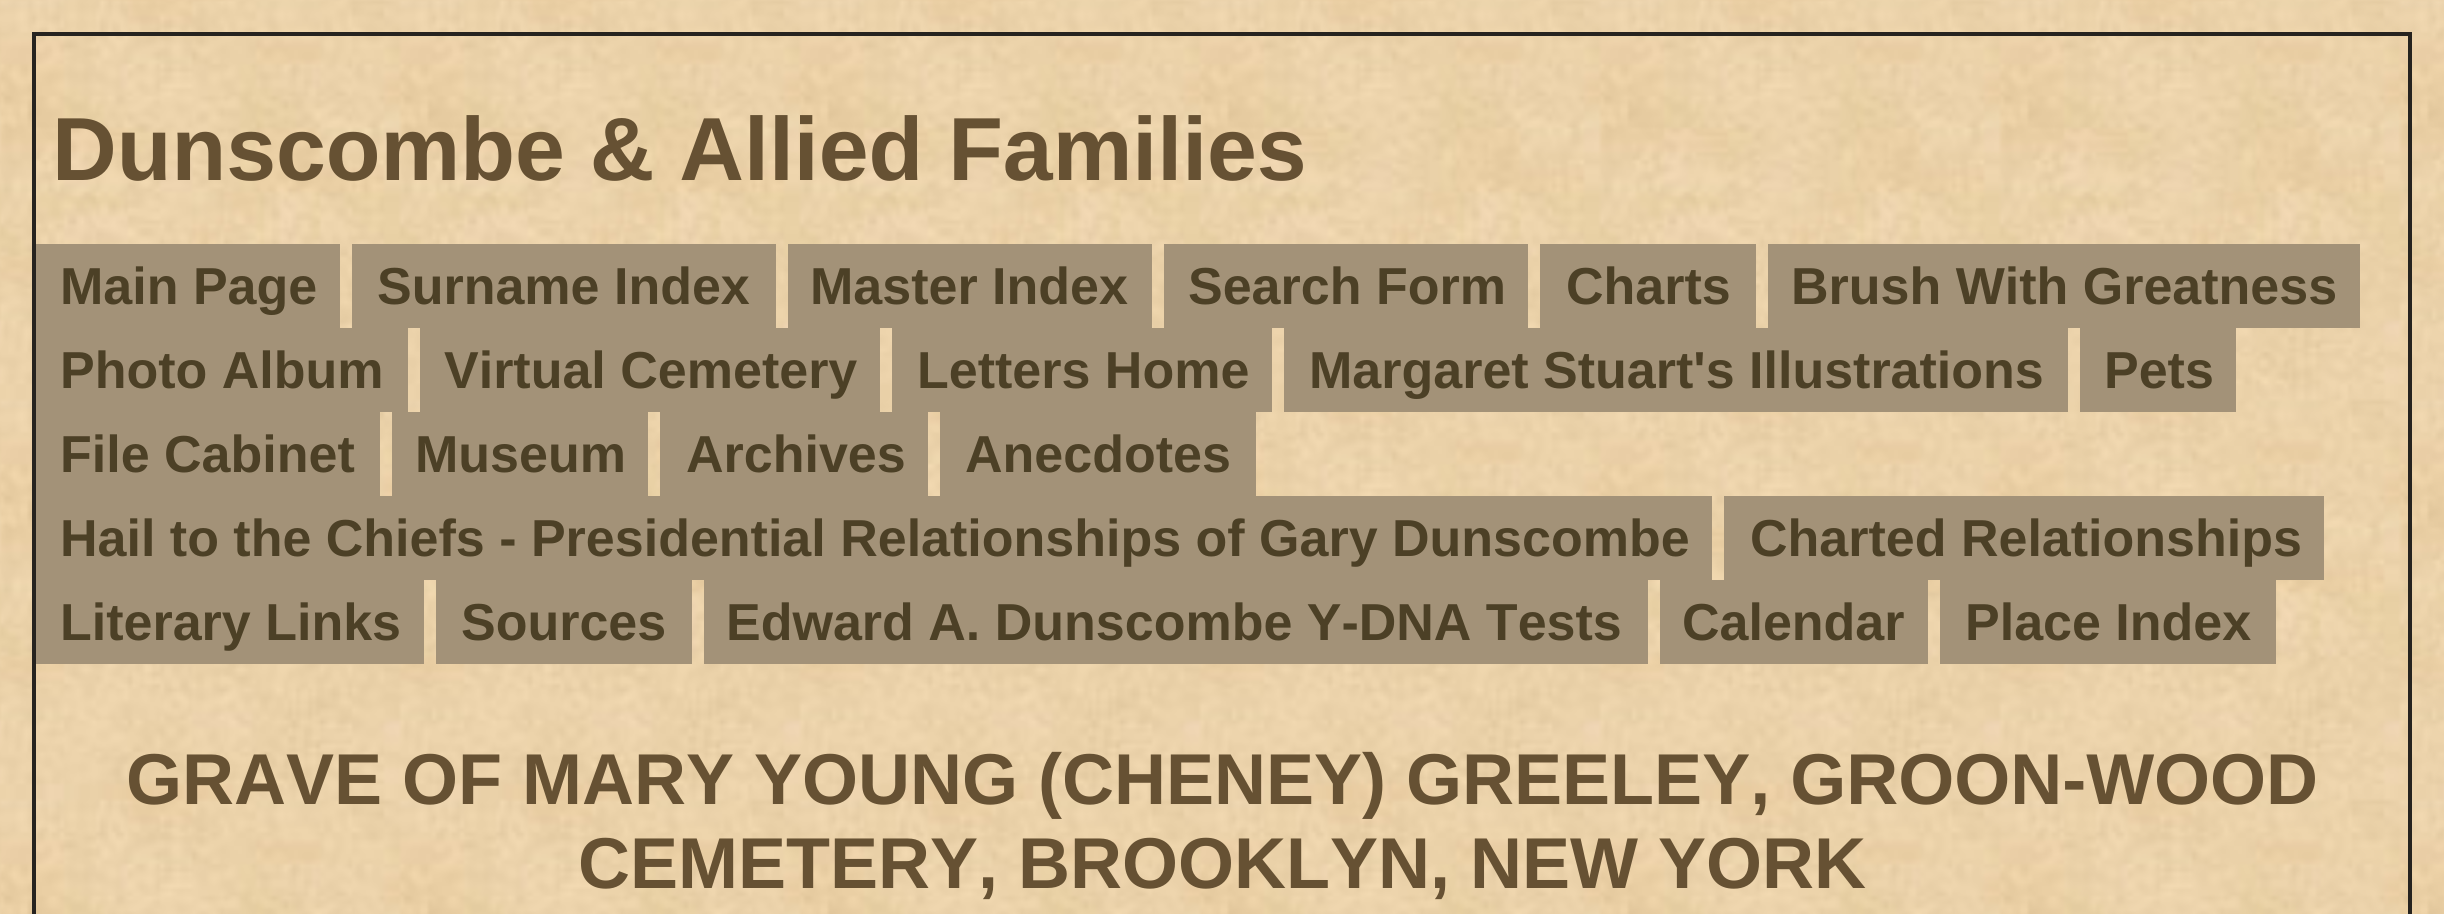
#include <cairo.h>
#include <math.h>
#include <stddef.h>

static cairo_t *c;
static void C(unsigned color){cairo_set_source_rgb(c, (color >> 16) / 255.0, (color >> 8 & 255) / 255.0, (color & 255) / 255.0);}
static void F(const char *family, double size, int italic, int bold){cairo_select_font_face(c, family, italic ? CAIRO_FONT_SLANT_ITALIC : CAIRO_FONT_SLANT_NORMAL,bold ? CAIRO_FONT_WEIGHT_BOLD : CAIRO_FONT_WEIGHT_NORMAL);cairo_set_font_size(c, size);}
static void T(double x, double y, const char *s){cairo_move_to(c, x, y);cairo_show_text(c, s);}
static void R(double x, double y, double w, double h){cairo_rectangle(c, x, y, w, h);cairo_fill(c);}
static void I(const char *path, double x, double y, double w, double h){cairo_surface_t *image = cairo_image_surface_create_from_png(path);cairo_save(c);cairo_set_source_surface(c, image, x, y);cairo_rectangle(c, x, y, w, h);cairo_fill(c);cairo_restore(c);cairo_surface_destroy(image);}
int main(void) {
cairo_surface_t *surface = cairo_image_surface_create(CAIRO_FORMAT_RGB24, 2444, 914);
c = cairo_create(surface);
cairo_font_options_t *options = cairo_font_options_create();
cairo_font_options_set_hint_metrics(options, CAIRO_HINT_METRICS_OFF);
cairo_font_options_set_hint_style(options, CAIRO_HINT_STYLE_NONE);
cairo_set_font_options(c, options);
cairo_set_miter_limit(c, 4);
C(0xffffff);
cairo_paint(c);
I("1.png",0,0,2444,914);
cairo_rectangle(c,34,34,2376,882);
C(0x26231f);
cairo_set_line_width(c,4);
cairo_stroke(c);
F("Liberation Sans",89.6,0,1);
C(0x665133);
T(52,180,"Dunscombe & Allied Families");
C(0xa39278);
R(36,244,304,84);
F("Liberation Sans",52,0,1);
C(0x4c4026);
T(60,304,"Main Page");
C(0xa39278);
R(352,244,424,84);
C(0x4c4026);
T(377,304,"Surname Index");
C(0xa39278);
R(788,244,364,84);
C(0x4c4026);
T(810,304,"Master Index");
C(0xa39278);
R(1164,244,364,84);
C(0x4c4026);
T(1188,304,"Search Form");
C(0xa39278);
R(1540,244,216,84);
C(0x4c4026);
T(1566,304,"Charts");
C(0xa39278);
R(1768,244,592,84);
C(0x4c4026);
T(1791,304,"Brush With Greatness");
C(0xa39278);
R(36,328,372,84);
C(0x4c4026);
T(60,388,"Photo Album");
C(0xa39278);
R(420,328,460,84);
C(0x4c4026);
T(444,388,"Virtual Cemetery");
C(0xa39278);
R(892,328,380,84);
C(0x4c4026);
T(917,388,"Letters Home");
C(0xa39278);
R(1284,328,784,84);
C(0x4c4026);
T(1309,388,"Margaret Stuart's Illustrations");
C(0xa39278);
R(2080,328,156,84);
C(0x4c4026);
T(2104,388,"Pets");
C(0xa39278);
R(36,412,344,84);
C(0x4c4026);
T(60,472,"File Cabinet");
C(0xa39278);
R(392,412,256,84);
C(0x4c4026);
T(415,472,"Museum");
C(0xa39278);
R(660,412,268,84);
C(0x4c4026);
T(686,472,"Archives");
C(0xa39278);
R(940,412,316,84);
C(0x4c4026);
T(965,472,"Anecdotes");
C(0xa39278);
R(36,496,1676,84);
C(0x4c4026);
T(60,556,"Hail to the Chiefs - Presidential Relationships of Gary Dunscombe");
C(0xa39278);
R(1724,496,600,84);
C(0x4c4026);
T(1750,556,"Charted Relationships");
C(0xa39278);
R(36,580,388,84);
C(0x4c4026);
T(60,640,"Literary Links");
C(0xa39278);
R(436,580,256,84);
C(0x4c4026);
T(461,640,"Sources");
C(0xa39278);
R(704,580,944,84);
C(0x4c4026);
T(726,640,"Edward A. Dunscombe Y-DNA Tests");
C(0xa39278);
R(1660,580,268,84);
C(0x4c4026);
T(1682,640,"Calendar");
C(0xa39278);
R(1940,580,336,84);
C(0x4c4026);
T(1965,640,"Place Index");
F("Liberation Sans",72,0,1);
C(0x665133);
T(126,804,"GRAVE OF MARY YOUNG (CHENEY) GREELEY, GROON-WOOD");
T(578,888,"CEMETERY, BROOKLYN, NEW YORK");
cairo_surface_write_to_png(surface, "o.png");
cairo_font_options_destroy(options);
cairo_destroy(c);
cairo_surface_destroy(surface);
return 0;
}
